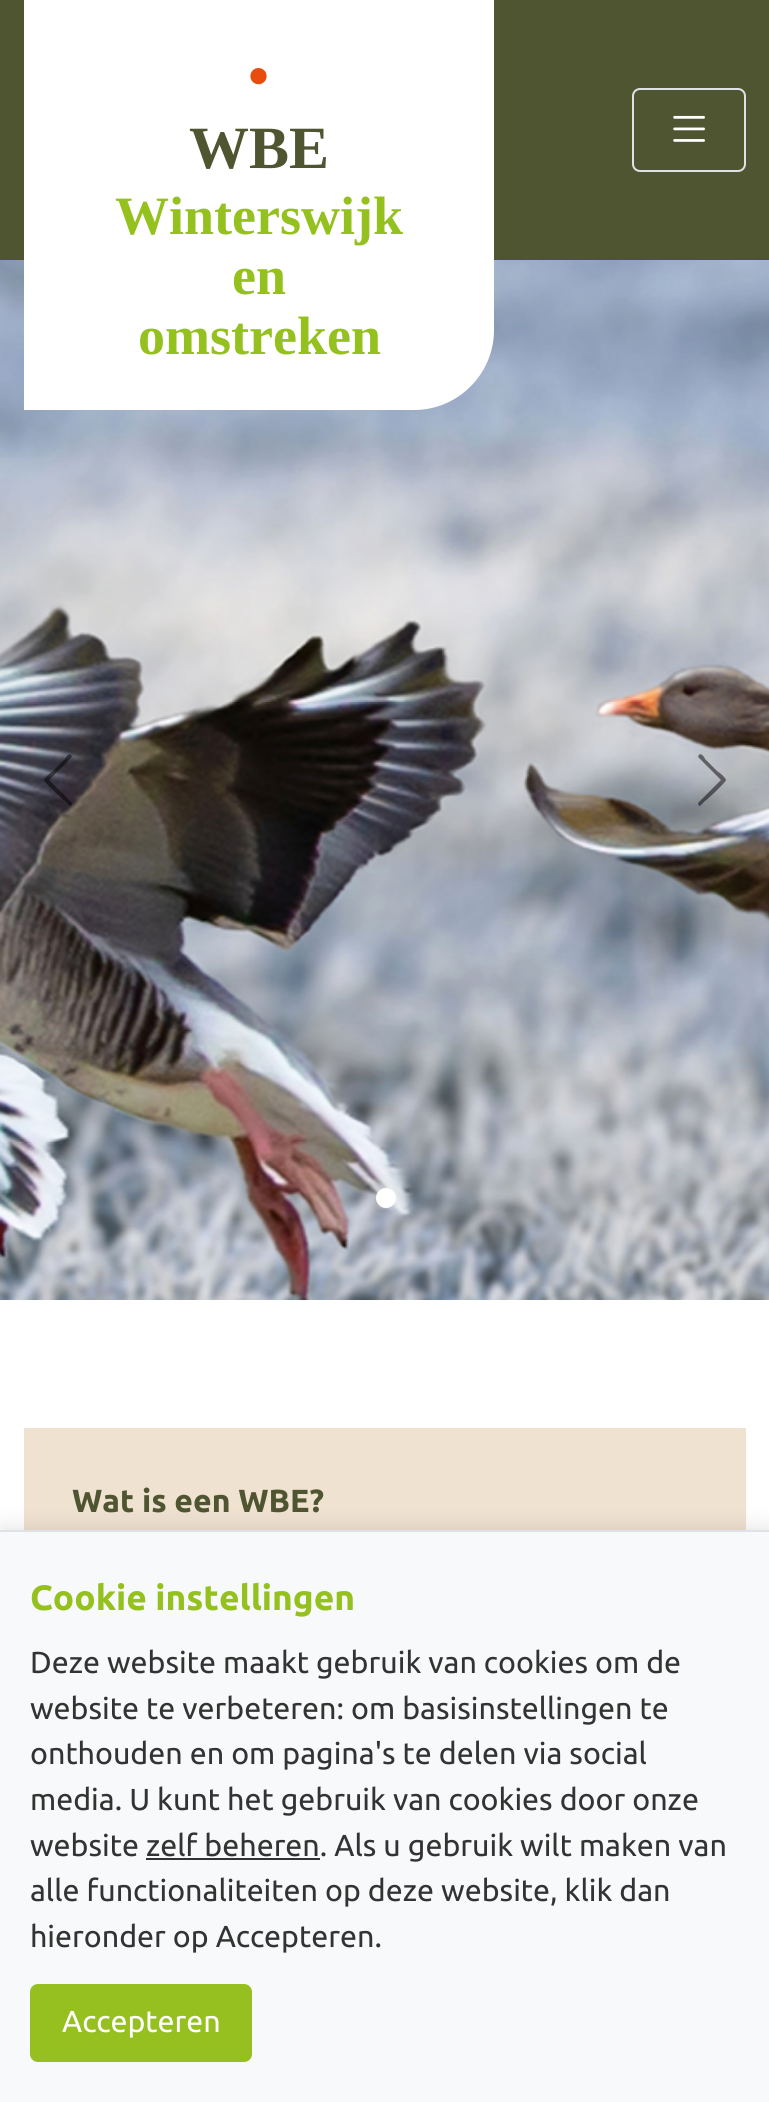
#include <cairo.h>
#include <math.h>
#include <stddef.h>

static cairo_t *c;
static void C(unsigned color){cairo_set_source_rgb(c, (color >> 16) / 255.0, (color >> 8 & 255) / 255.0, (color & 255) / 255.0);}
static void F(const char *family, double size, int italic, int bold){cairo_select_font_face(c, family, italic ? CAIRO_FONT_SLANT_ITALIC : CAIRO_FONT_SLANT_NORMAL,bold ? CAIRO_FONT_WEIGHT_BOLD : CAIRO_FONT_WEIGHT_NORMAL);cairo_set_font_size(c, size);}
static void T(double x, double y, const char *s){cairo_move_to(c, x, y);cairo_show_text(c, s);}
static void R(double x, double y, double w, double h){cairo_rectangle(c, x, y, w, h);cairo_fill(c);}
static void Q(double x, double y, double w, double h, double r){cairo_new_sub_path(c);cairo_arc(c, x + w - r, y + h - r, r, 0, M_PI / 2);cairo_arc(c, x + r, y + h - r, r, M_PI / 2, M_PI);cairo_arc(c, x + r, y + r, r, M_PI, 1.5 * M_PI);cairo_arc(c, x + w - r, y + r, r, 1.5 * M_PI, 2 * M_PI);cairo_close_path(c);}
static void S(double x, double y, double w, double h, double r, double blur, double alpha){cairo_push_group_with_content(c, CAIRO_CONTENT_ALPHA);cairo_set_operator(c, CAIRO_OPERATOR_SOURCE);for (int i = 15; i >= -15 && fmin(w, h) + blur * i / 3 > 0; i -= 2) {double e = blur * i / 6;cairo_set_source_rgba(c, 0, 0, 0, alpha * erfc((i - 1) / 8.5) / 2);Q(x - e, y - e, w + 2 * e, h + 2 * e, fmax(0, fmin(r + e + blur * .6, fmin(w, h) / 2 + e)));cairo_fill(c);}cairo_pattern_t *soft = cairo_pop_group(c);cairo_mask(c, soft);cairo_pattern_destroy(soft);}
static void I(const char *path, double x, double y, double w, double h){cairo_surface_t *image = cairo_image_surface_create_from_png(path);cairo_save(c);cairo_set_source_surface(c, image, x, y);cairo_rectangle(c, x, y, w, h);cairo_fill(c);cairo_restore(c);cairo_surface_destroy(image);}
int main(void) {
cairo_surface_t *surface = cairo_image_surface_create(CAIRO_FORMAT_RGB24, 769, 2102);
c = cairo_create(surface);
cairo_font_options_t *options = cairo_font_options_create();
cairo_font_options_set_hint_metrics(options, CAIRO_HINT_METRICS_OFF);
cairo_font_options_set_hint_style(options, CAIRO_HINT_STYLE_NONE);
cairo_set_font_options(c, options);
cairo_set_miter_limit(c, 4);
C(0xffffff);
cairo_paint(c);
C(0x4f5531);
R(0,0,769,260);
I("2.png",0,260,769,1040);
C(0xffffff);
cairo_new_path(c);
cairo_move_to(c,24,0);
cairo_line_to(c,494,0);
cairo_line_to(c,494,330);
cairo_curve_to(c,494,374,458,410,414,410);
cairo_line_to(c,24,410);
cairo_close_path(c);
cairo_fill(c);
F("Liberation Serif",60,0,1);
C(0xe84d0d);
T(248,96,"•");
C(0x4f5531);
T(189,168,"WBE");
F("Liberation Serif",54,0,1);
C(0x94c11e);
T(115,234,"Winterswijk");
T(232,294,"en");
T(138,354,"omstreken");
Q(633,89,112,82,7);
C(0xdee2e6);
cairo_stroke(c);
I("1.png",673,115,32,27);
cairo_set_source_rgba(c,0,0,0,0.5);
cairo_new_path(c);
cairo_move_to(c,71,755);
cairo_curve_to(c,74,757,68,760,68,761);
cairo_line_to(c,49,780);
cairo_line_to(c,72,803);
cairo_curve_to(c,72,805,71,806,70,806);
cairo_line_to(c,65,801);
cairo_curve_to(c,62,799,44,782,44,780);
cairo_curve_to(c,44,778,51,772,53,771);
cairo_line_to(c,65,759);
cairo_curve_to(c,65,758,69,752,71,755);
cairo_fill(c);
cairo_new_path(c);
cairo_move_to(c,699,755);
cairo_curve_to(c,701,752,705,758,705,759);
cairo_line_to(c,717,771);
cairo_curve_to(c,719,772,726,778,726,780);
cairo_curve_to(c,726,782,708,799,705,801);
cairo_line_to(c,700,806);
cairo_curve_to(c,699,806,698,805,698,803);
cairo_line_to(c,721,780);
cairo_line_to(c,702,761);
cairo_curve_to(c,702,760,696,757,699,755);
cairo_fill(c);
C(0xffffff);
cairo_arc(c,386,1198,10,0,2 * M_PI);
cairo_fill(c);
C(0xf0e2d1);
R(24,1428,722,102);
F("Ubuntu",32,0,1);
C(0x4f5531);
T(72,1512,"Wat is een WBE?");
C(0x000000);
S(0,1526,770,572,0,10,.1);
C(0xf8f9fa);
R(0,1532,769,570);
C(0xdee2e6);
R(0,1530,769,2);
F("Ubuntu",35.25,0,1);
C(0x94c11e);
T(30,1610,"Cookie instellingen");
F("Ubuntu",30.4,0,0);
C(0x333333);
T(30,1673,"Deze website maakt gebruik van cookies om de");
T(30,1719,"website te verbeteren: om basisinstellingen te");
T(30,1764,"onthouden en om pagina's te delen via social");
T(30,1810,"media. U kunt het gebruik van cookies door onze");
T(30,1856,"website zelf beheren. Als u gebruik wilt maken van");
R(146,1858,174,2);
T(30,1901,"alle functionaliteiten op deze website, klik dan");
T(30,1947,"hieronder op Accepteren.");
C(0x95c01f);
Q(30,1984,222,78,8);
cairo_fill(c);
C(0xffffff);
T(62,2032,"Accepteren");
cairo_surface_write_to_png(surface, "o.png");
cairo_font_options_destroy(options);
cairo_destroy(c);
cairo_surface_destroy(surface);
return 0;
}
